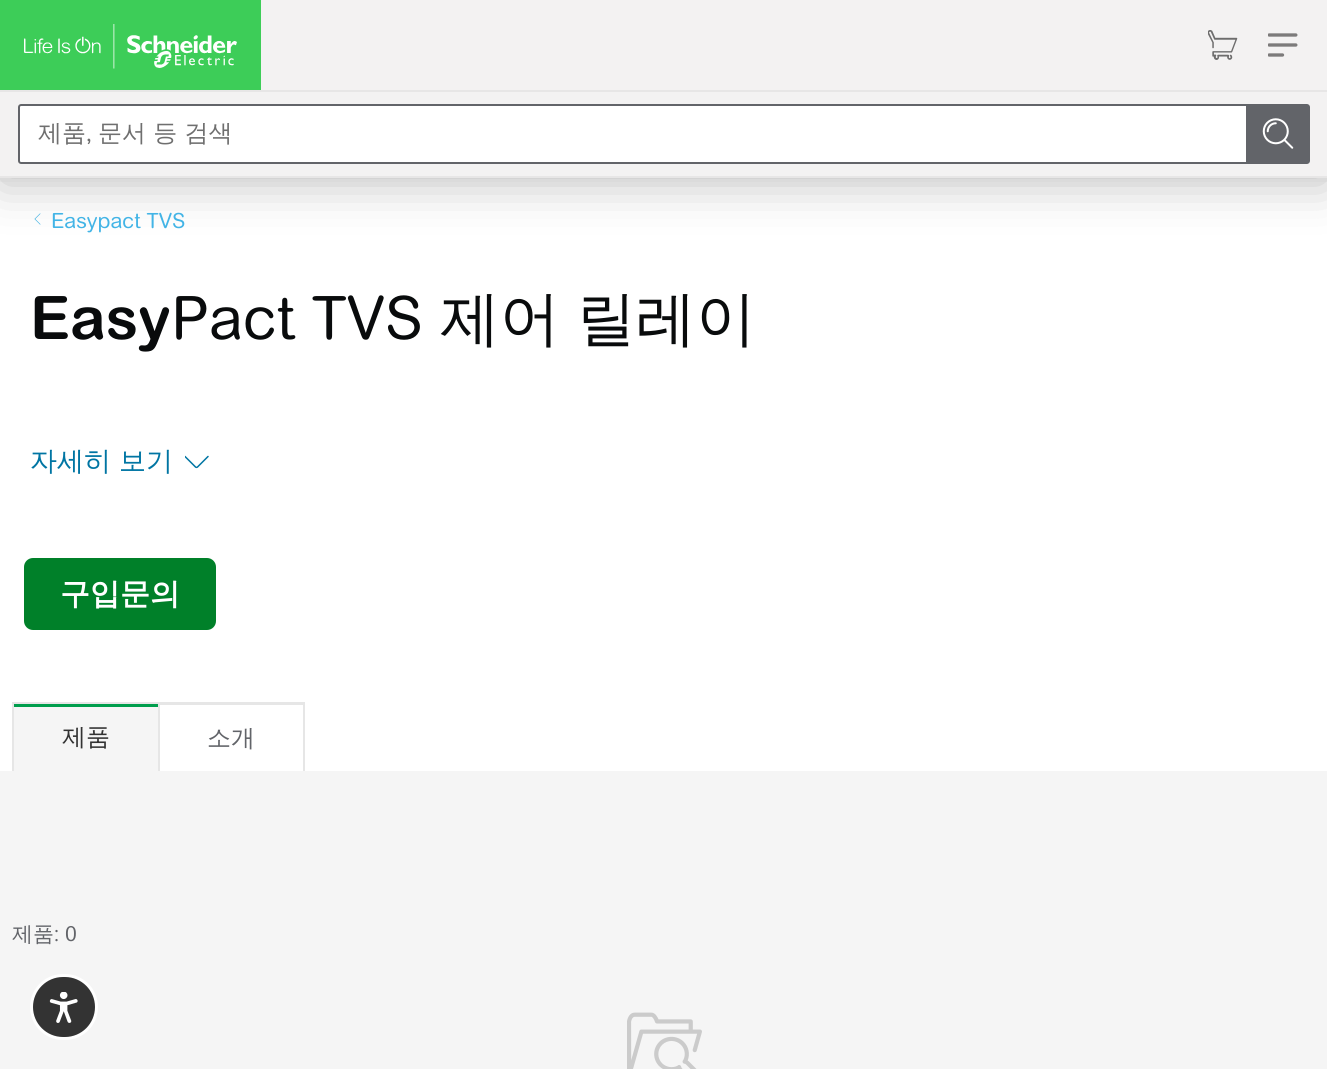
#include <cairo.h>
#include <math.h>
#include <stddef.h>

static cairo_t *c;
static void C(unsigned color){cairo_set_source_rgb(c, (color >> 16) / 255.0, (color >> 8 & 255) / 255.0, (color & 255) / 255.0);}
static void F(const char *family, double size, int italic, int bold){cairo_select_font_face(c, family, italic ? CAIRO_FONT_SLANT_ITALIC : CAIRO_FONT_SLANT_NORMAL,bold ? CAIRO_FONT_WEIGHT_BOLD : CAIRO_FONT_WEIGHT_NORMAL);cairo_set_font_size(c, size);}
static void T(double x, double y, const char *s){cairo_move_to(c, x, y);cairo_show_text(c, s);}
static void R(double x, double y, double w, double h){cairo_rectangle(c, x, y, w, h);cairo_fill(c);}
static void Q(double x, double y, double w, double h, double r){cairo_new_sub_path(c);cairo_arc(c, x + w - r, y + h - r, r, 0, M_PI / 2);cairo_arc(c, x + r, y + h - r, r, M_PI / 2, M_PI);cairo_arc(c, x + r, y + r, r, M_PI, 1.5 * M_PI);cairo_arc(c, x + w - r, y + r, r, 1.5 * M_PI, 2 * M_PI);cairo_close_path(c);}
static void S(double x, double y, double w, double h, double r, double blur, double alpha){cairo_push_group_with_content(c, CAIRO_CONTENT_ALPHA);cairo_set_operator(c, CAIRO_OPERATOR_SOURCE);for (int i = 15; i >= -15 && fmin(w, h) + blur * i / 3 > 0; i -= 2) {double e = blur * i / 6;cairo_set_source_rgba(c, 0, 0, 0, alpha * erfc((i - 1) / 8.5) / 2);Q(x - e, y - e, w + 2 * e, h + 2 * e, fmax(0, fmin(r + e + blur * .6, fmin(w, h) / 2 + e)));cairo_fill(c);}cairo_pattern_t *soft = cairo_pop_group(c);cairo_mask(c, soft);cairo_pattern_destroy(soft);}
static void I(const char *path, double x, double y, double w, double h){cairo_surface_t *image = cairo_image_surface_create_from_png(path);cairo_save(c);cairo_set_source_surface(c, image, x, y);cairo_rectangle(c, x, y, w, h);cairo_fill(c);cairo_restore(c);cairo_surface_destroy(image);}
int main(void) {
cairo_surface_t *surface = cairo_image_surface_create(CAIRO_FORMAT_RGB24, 1327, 1069);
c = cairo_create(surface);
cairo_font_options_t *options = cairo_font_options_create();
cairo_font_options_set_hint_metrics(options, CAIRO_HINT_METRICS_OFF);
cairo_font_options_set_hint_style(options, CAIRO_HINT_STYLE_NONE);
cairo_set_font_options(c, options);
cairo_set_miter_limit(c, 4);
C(0xfafafa);
cairo_paint(c);
C(0xffffff);
R(0,182,1327,589);
I("5.png",34,213,7,12);
C(0x000000);
S(0,6,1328,177,0,24,.25);
C(0xf3f2f2);
R(0,0,1327,176);
C(0xe7e6e6);
R(0,176,1327,2);
C(0x3dcd58);
R(0,0,261,90);
I("1.png",24,24,213,45);
I("2.png",1208,30,30,30);
I("3.png",1268,33,30,24);
C(0xe7e6e6);
R(0,90,1327,2);
C(0xffffff);
cairo_new_path(c);
cairo_move_to(c,21,105);
cairo_line_to(c,1247,105);
cairo_line_to(c,1247,163);
cairo_line_to(c,21,163);
cairo_curve_to(c,20,163,19,162,19,161);
cairo_line_to(c,19,107);
cairo_curve_to(c,19,106,20,105,21,105);
cairo_close_path(c);
cairo_fill_preserve(c);
C(0x626469);
cairo_stroke(c);
F("WenQuanYi Zen Hei Medium",24,0,0);
C(0x6f6f6f);
T(38,141,"제품");
F("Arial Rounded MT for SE",24,0,0);
T(86,141,",");
F("WenQuanYi Zen Hei Medium",24,0,0);
T(98,141,"문서 등 검색");
C(0x626469);
cairo_new_path(c);
cairo_move_to(c,1248,104);
cairo_line_to(c,1307,104);
cairo_curve_to(c,1308.5,104,1310,105.5,1310,107);
cairo_line_to(c,1310,161);
cairo_curve_to(c,1310,162.5,1308.5,164,1307,164);
cairo_line_to(c,1248,164);
cairo_close_path(c);
cairo_fill(c);
I("4.png",1262,118,32,31);
F("Arial Rounded MT for SE",21,0,0);
C(0x42b4e6);
T(51,228,"Easypact TVS");
F("Arial Rounded MT for SE",60,0,1);
C(0x090b0c);
T(30,339,"Easy");
F("Arial Rounded MT for SE",60,0,0);
T(171,339,"Pact TVS");
F("WenQuanYi Zen Hei Medium",60,0,0);
T(440,339,"제어");
T(576,339,"릴레이");
F("WenQuanYi Zen Hei Medium",27,0,0);
C(0x0075a3);
T(30,470,"자세히 보기");
cairo_save(c);
cairo_rectangle(c,185,450,24,24);
cairo_clip(c);
cairo_new_path(c);
cairo_move_to(c,208,456.5);
cairo_line_to(c,197.5,467);
cairo_curve_to(c,197,467.5,196,467.5,195.5,467);
cairo_line_to(c,185,456.5);
cairo_set_line_width(c,1.5);
cairo_set_line_cap(c,CAIRO_LINE_CAP_ROUND);
cairo_set_line_join(c,CAIRO_LINE_JOIN_ROUND);
cairo_stroke(c);
cairo_restore(c);
C(0x008029);
Q(24,558,192,72,9);
cairo_fill(c);
F("WenQuanYi Zen Hei",30,0,1);
C(0xffffff);
T(60,604,"구입문의");
C(0xf5f5f5);
R(14,707,144,64);
C(0xe6e6e6);
R(12,702,147,2);
R(158,702,2,69);
R(12,702,2,69);
C(0x009e4d);
R(14,704,144,3);
F("WenQuanYi Zen Hei Medium",24,0,0);
C(0x333333);
T(62,745,"제품");
C(0xe6e6e6);
R(159,702,146,3);
R(303,702,2,69);
C(0x626469);
T(207,746,"소개");
C(0xf5f5f5);
R(0,771,1327,298);
F("WenQuanYi Zen Hei Medium",21,0,0);
C(0x626469);
T(12,941,"제품");
F("Arial Rounded MT for SE",21,0,0);
T(54,941,": 0");
I("6.png",627,1012,75,57);
C(0x333333);
Q(31.5,975.5,65,63,31.5);
cairo_fill_preserve(c);
C(0xffffff);
cairo_set_line_width(c,3);
cairo_stroke(c);
I("7.png",49,992,29,31);
cairo_surface_write_to_png(surface, "o.png");
cairo_font_options_destroy(options);
cairo_destroy(c);
cairo_surface_destroy(surface);
return 0;
}
